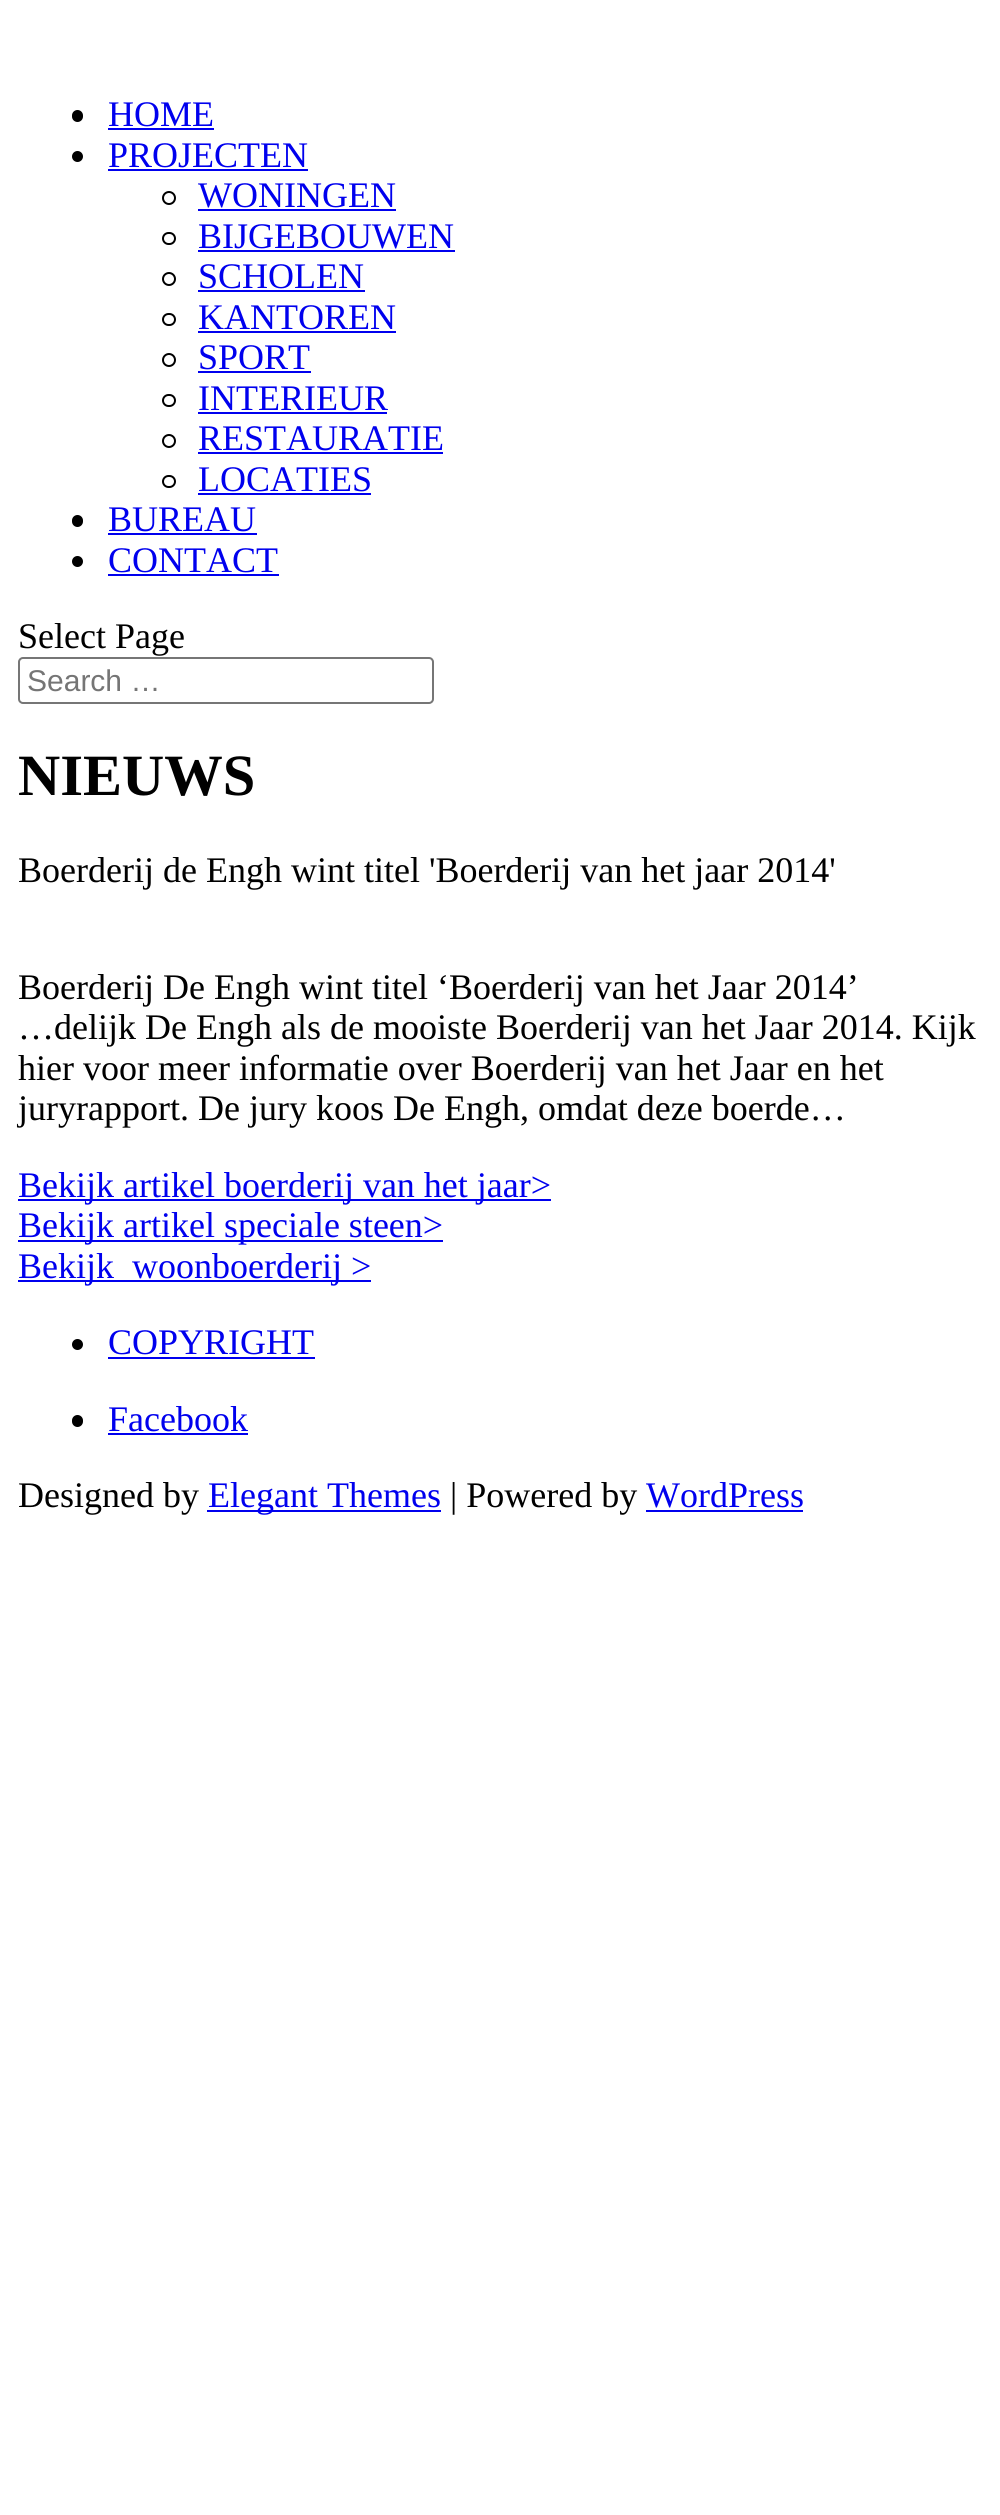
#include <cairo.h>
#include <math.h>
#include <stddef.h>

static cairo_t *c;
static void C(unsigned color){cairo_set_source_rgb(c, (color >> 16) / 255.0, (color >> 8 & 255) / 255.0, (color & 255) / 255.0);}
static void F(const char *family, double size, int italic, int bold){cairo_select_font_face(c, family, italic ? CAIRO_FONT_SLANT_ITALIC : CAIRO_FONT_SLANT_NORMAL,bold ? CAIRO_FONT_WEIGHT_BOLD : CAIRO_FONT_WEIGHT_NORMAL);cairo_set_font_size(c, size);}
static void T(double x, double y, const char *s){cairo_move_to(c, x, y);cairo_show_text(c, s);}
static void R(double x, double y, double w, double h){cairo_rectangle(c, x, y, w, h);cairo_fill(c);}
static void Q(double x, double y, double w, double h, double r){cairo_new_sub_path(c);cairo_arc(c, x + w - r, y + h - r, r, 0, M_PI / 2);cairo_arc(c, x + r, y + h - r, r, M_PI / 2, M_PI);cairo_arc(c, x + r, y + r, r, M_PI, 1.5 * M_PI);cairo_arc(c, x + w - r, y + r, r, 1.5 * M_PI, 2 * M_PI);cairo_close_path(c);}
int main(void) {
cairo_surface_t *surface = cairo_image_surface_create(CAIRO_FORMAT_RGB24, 1000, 2515);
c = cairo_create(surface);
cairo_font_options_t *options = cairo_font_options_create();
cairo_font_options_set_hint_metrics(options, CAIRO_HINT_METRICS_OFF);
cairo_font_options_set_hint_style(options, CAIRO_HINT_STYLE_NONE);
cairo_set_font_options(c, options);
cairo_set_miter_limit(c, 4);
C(0xffffff);
cairo_paint(c);
C(0x000000);
Q(72,110,11,12,5.5);
cairo_fill(c);
F("Liberation Serif",36,0,0);
C(0x0000ee);
T(108,126,"HOME");
R(108,128,106,2);
C(0x000000);
cairo_new_path(c);
cairo_arc(c,77.5,156.5,5.5,0,2 * M_PI);
cairo_fill(c);
C(0x0000ee);
T(108,167,"PROJECTEN");
R(108,169,200,2);
cairo_new_path(c);
cairo_arc(c,169,198,6,0,2 * M_PI);
C(0x000000);
cairo_stroke(c);
C(0x0000ee);
T(198,207,"WONINGEN");
R(198,209,198,2);
Q(163,233,12,11,5.5);
C(0x000000);
cairo_stroke(c);
C(0x0000ee);
T(198,248,"BIJGEBOUWEN");
R(198,250,257,2);
cairo_new_path(c);
cairo_arc(c,169,279,6,0,2 * M_PI);
C(0x000000);
cairo_stroke(c);
C(0x0000ee);
T(198,288,"SCHOLEN");
R(198,290,167,2);
Q(163,314,12,11,5.5);
C(0x000000);
cairo_stroke(c);
C(0x0000ee);
T(198,329,"KANTOREN");
R(198,331,198,2);
cairo_new_path(c);
cairo_arc(c,169,360,6,0,2 * M_PI);
C(0x000000);
cairo_stroke(c);
C(0x0000ee);
T(198,369,"SPORT");
R(198,371,113,2);
Q(163,395,12,11,5.5);
C(0x000000);
cairo_stroke(c);
C(0x0000ee);
T(198,410,"INTERIEUR");
R(198,412,189,2);
cairo_new_path(c);
cairo_arc(c,169,441,6,0,2 * M_PI);
C(0x000000);
cairo_stroke(c);
C(0x0000ee);
T(198,450,"RESTAURATIE");
R(198,452,245,2);
Q(163,476,12,11,5.5);
C(0x000000);
cairo_stroke(c);
C(0x0000ee);
T(198,491,"LOCATIES");
R(198,493,173,2);
C(0x000000);
Q(72,515,11,12,5.5);
cairo_fill(c);
C(0x0000ee);
T(108,531,"BUREAU");
R(108,533,149,2);
C(0x000000);
cairo_new_path(c);
cairo_arc(c,77.5,561.5,5.5,0,2 * M_PI);
cairo_fill(c);
C(0x0000ee);
T(108,572,"CONTACT");
R(108,574,171,2);
C(0x000000);
T(18,648,"Select Page");
Q(19,658,414,45,4);
C(0x767676);
cairo_stroke(c);
F("Liberation Sans",30,0,0);
C(0x757575);
T(27,691,"Search …");
F("Liberation Serif",58.5,0,1);
C(0x000000);
T(18,795,"NIEUWS");
F("Liberation Serif",36,0,0);
T(18,882,"Boerderij de Engh wint titel 'Boerderij van het jaar 2014'");
T(18,999,"Boerderij De Engh wint titel ‘Boerderij van het Jaar 2014’");
T(18,1039,"…delijk De Engh als de mooiste Boerderij van het Jaar 2014. Kijk");
T(18,1080,"hier voor meer informatie over Boerderij van het Jaar en het");
T(18,1120,"juryrapport. De jury koos De Engh, omdat deze boerde…");
C(0x0000ee);
R(18,1199,533,2);
T(18,1197,"Bekijk artikel boerderij van het jaar>");
R(18,1240,425,2);
T(18,1237,"Bekijk artikel speciale steen>");
R(18,1280,353,2);
T(18,1278,"Bekijk  woonboerderij >");
C(0x000000);
cairo_new_path(c);
cairo_arc(c,77.5,1344.5,5.5,0,2 * M_PI);
cairo_fill(c);
C(0x0000ee);
T(108,1354,"COPYRIGHT");
R(108,1357,207,2);
C(0x000000);
Q(72,1415,11,12,5.5);
cairo_fill(c);
C(0x0000ee);
T(108,1431,"Facebook");
R(108,1433,140,2);
C(0x000000);
T(18,1507,"Designed by");
C(0x0000ee);
R(207,1510,234,2);
T(208,1507,"Elegant Themes");
C(0x000000);
T(450,1507,"| Powered by");
C(0x0000ee);
T(646,1507,"WordPress");
R(646,1510,157,2);
cairo_surface_write_to_png(surface, "o.png");
cairo_font_options_destroy(options);
cairo_destroy(c);
cairo_surface_destroy(surface);
return 0;
}
